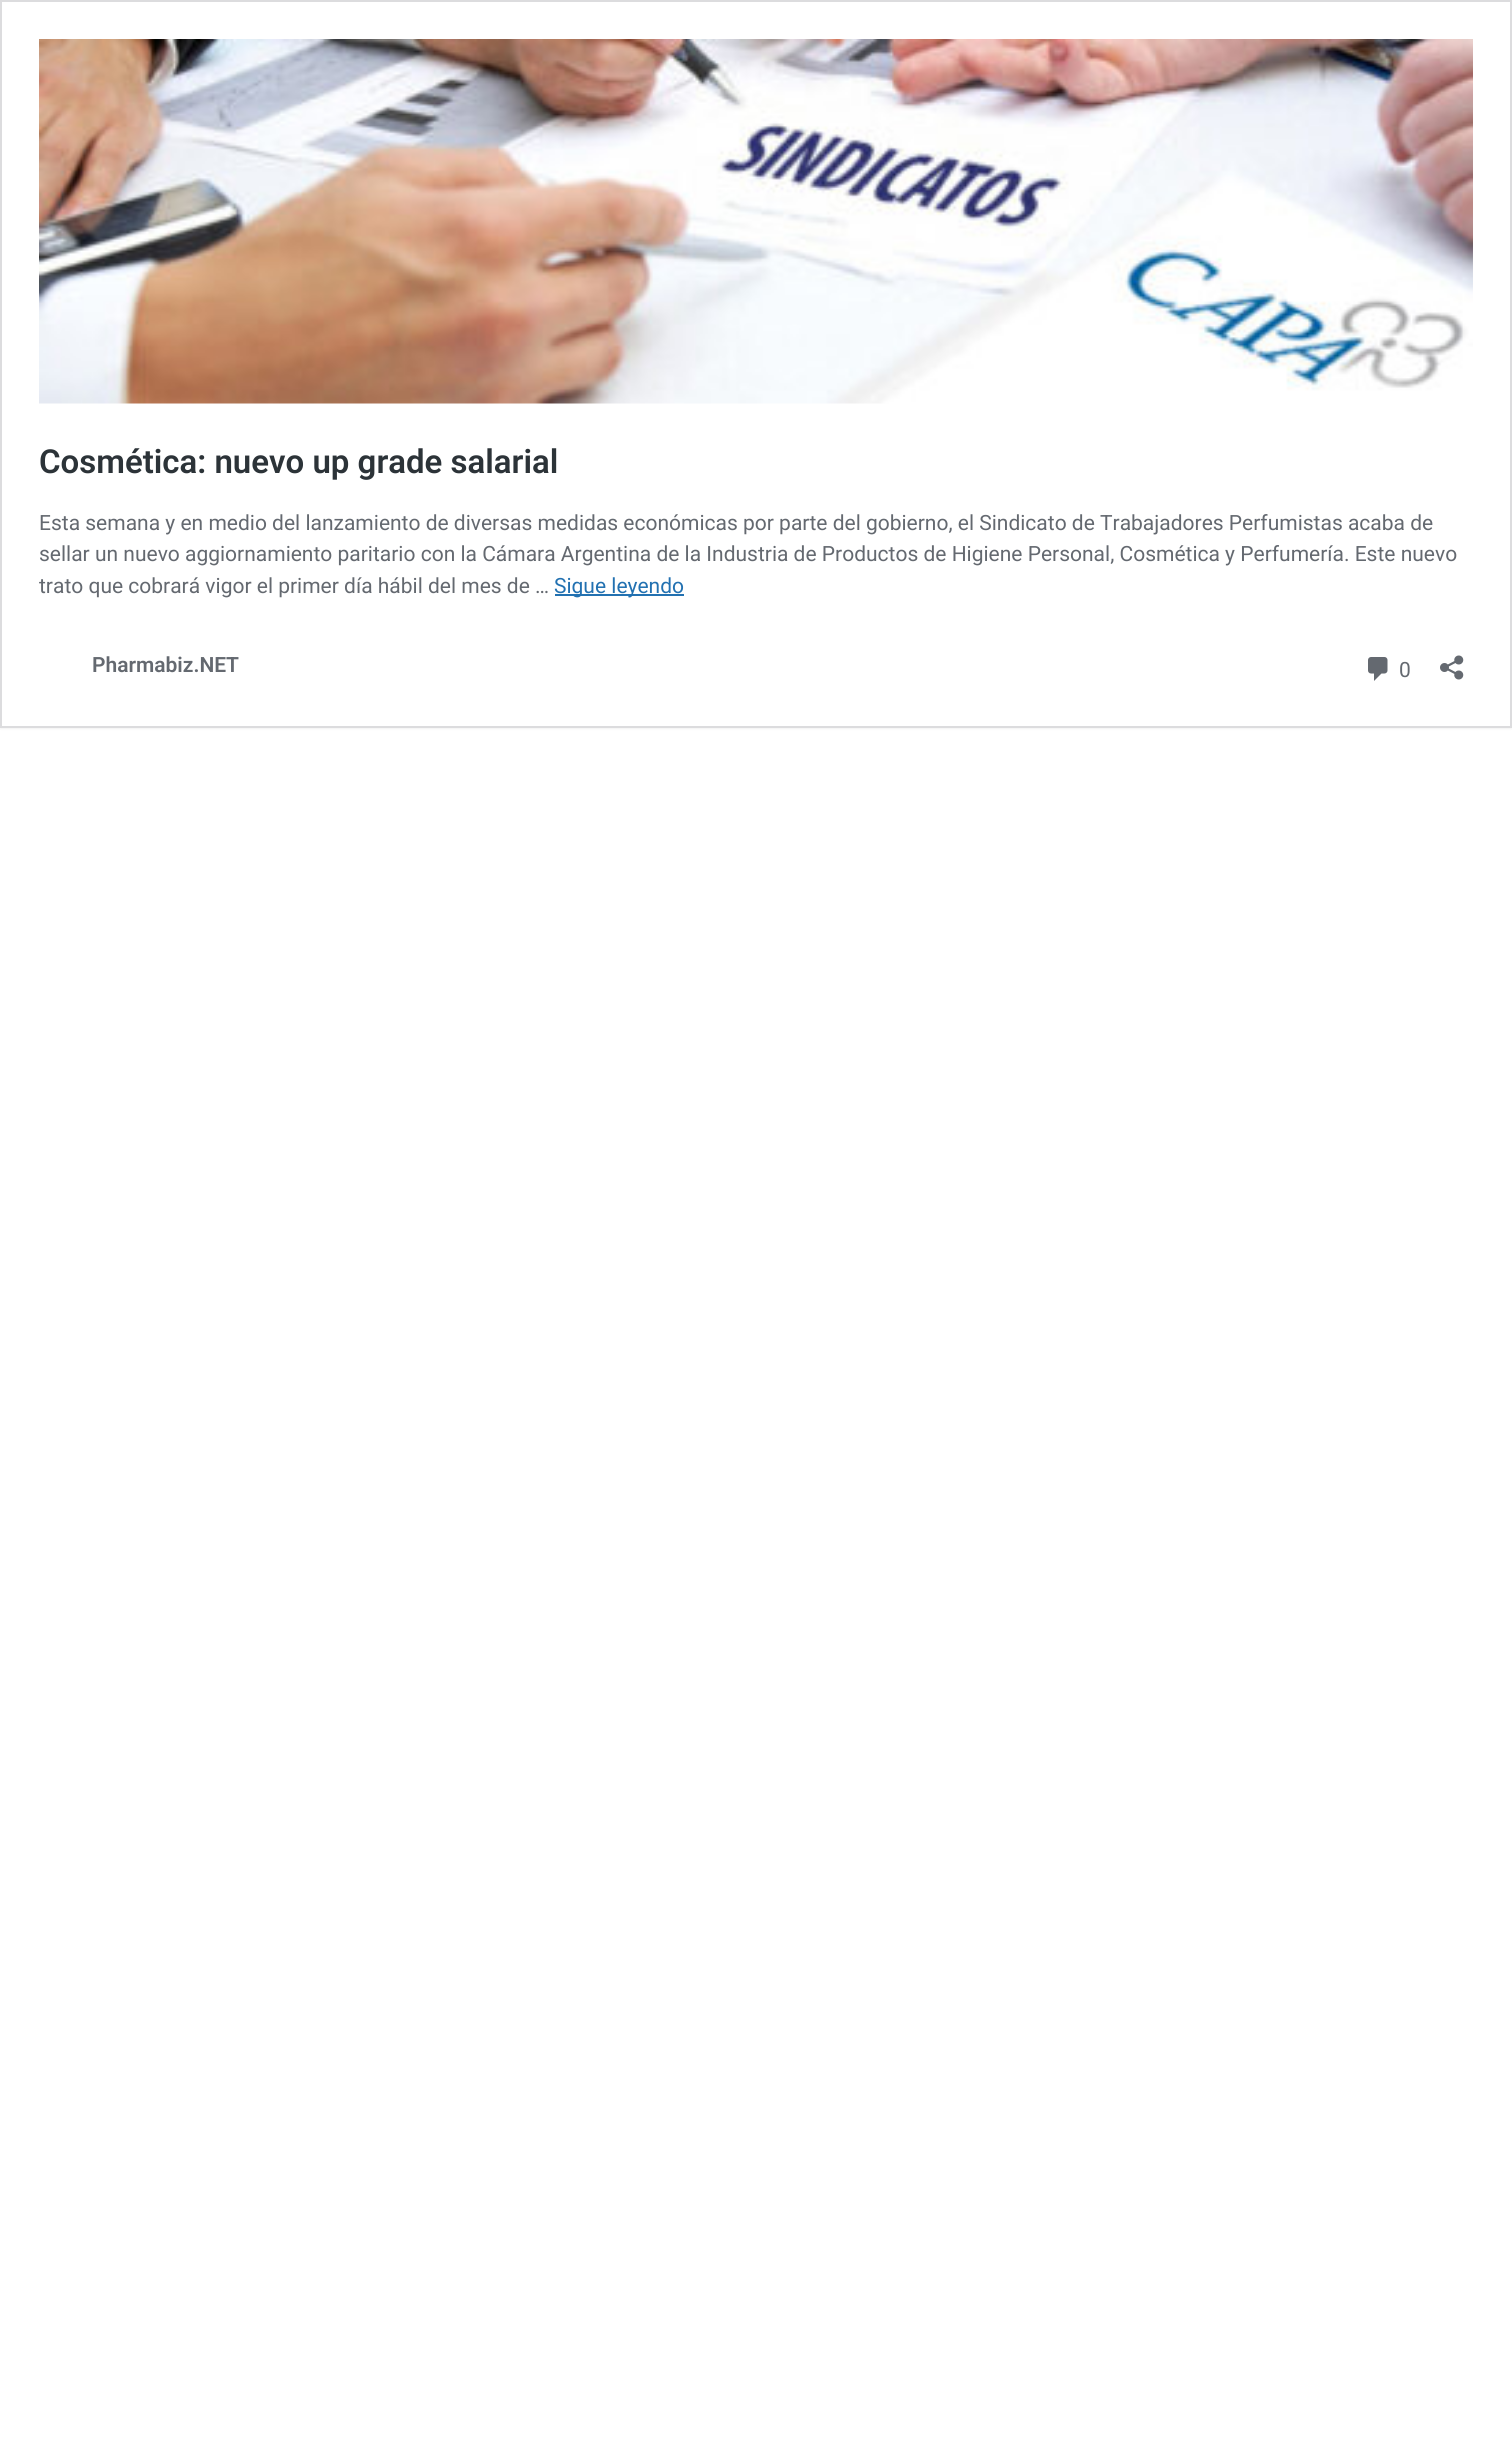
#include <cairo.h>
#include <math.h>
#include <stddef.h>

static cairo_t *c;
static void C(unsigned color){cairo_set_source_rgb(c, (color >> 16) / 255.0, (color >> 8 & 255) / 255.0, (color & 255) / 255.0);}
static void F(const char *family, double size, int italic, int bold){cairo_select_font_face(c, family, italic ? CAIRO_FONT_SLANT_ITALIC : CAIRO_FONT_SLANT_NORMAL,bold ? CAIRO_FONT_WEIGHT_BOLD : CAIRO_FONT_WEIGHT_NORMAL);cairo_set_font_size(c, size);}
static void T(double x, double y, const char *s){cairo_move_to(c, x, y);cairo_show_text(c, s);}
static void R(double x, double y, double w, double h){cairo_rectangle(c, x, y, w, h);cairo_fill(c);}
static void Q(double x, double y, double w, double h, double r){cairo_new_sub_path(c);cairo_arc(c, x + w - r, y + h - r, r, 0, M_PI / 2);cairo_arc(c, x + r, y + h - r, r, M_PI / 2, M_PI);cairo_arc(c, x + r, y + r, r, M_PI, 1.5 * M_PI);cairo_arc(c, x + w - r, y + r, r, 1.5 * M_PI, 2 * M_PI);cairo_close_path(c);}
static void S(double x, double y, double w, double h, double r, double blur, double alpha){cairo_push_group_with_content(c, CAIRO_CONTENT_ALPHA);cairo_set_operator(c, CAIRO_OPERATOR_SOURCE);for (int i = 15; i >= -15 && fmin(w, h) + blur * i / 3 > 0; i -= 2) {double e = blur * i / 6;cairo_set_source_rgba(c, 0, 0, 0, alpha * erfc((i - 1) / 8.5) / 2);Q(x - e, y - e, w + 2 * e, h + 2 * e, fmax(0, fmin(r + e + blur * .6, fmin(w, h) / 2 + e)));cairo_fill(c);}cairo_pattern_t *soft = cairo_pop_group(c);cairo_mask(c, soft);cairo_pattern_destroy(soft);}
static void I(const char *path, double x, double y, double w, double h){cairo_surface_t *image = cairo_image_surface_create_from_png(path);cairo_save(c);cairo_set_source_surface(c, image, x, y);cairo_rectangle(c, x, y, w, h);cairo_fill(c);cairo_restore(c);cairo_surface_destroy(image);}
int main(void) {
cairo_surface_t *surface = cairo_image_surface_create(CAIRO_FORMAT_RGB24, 1512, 2456);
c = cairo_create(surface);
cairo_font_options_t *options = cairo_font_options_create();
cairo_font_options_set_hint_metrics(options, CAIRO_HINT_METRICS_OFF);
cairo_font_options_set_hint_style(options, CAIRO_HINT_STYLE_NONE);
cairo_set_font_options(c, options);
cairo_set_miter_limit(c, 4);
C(0xffffff);
cairo_paint(c);
C(0x000000);
S(0,2,1512,727,0,1,.05);
C(0xffffff);
cairo_rectangle(c,1,1,1510,726);
cairo_fill_preserve(c);
C(0xdcdcde);
cairo_stroke(c);
I("1.png",39,39,1434,365);
F("Roboto SemiBold",33,0,0);
C(0x2c3338);
T(39,473,"Cosmética: nuevo up grade salarial");
F("Roboto",21,0,0);
C(0x646970);
T(39,530,"Esta semana y en medio del lanzamiento de diversas medidas económicas por parte del gobierno, el Sindicato de Trabajadores Perfumistas acaba de");
T(39,561,"sellar un nuevo aggiornamiento paritario con la Cámara Argentina de la Industria de Productos de Higiene Personal, Cosmética y Perfumería. Este nuevo");
T(39,593,"trato que cobrará vigor el primer día hábil del mes de …");
C(0x2271b1);
R(555,594,129,2);
T(554,593,"Sigue leyendo");
F("Roboto SemiBold",21,0,0);
C(0x646970);
T(92,672,"Pharmabiz.NET");
I("2.png",1368,657,20,24);
F("Roboto",21,0,0);
T(1399,677,"0");
I("3.png",1440,655,24,25);
cairo_surface_write_to_png(surface, "o.png");
cairo_font_options_destroy(options);
cairo_destroy(c);
cairo_surface_destroy(surface);
return 0;
}
